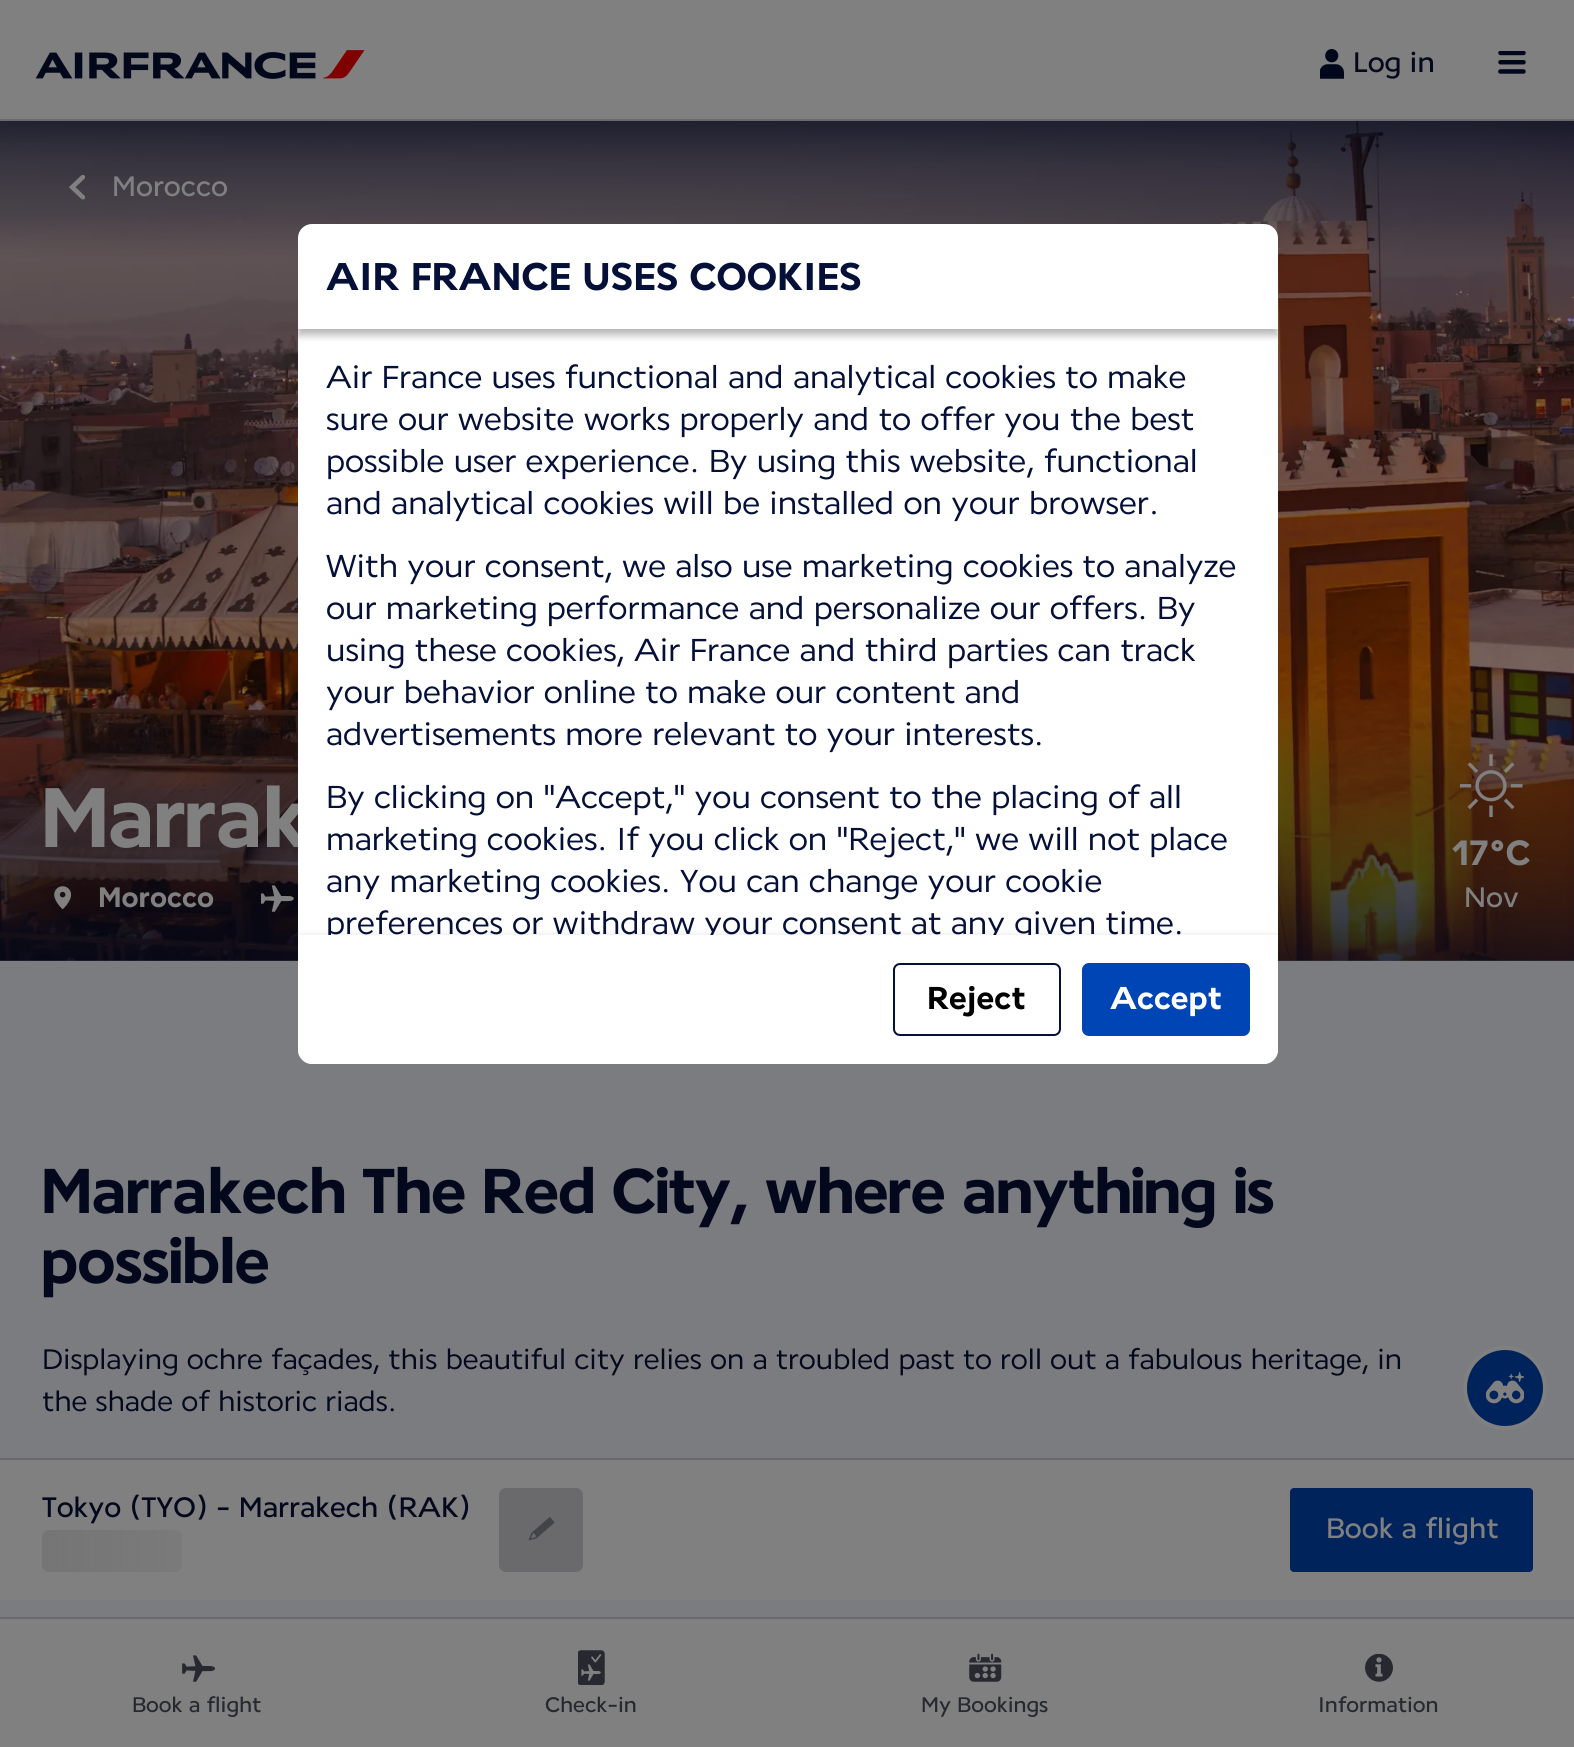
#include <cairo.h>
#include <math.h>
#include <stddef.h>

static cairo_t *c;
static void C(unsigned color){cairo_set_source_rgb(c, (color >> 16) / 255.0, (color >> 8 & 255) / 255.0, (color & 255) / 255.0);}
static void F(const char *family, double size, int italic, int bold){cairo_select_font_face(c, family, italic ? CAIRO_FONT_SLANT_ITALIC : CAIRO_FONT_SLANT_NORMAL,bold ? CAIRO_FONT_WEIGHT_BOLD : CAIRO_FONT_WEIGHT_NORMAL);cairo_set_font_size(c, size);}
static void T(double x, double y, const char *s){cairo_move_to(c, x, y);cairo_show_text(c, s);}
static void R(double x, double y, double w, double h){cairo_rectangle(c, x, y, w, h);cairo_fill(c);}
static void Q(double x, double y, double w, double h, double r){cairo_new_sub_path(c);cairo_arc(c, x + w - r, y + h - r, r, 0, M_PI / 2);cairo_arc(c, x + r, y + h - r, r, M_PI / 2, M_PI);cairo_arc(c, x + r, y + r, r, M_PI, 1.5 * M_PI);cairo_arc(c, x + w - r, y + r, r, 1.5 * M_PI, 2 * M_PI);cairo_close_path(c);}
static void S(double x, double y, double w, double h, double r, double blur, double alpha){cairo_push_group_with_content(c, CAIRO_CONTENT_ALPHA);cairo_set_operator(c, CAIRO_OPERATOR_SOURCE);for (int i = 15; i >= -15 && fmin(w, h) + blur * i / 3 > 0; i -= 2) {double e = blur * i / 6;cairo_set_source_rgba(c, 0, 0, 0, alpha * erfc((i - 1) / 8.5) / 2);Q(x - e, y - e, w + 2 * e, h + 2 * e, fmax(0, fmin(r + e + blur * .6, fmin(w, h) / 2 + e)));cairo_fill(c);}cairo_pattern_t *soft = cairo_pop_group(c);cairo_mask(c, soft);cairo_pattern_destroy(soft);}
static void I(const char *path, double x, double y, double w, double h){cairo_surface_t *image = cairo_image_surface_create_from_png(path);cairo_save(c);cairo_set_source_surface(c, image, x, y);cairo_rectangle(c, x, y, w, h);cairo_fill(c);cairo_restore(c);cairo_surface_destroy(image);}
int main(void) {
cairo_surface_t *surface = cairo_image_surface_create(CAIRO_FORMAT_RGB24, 1574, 1747);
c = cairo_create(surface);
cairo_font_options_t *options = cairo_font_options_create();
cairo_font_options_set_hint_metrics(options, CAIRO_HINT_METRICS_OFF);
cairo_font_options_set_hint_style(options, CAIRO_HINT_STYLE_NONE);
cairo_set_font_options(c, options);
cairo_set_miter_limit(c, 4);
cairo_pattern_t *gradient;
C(0xffffff);
cairo_paint(c);
C(0x808080);
R(0,0,1574,119);
C(0x6a6a6c);
R(0,119,1574,2);
I("1.png",35,50,330,29);
I("2.png",1320,49,24,30);
F("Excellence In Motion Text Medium",28,0,0);
C(0x03081d);
T(1353,72,"Log in");
I("3.png",1498,51,28,23);
I("4.png",0,121,1574,840);
gradient = cairo_pattern_create_linear(788,541,788,961);
cairo_pattern_add_color_stop_rgba(gradient,.34,0.012,0.031,0.114,.02);
cairo_pattern_add_color_stop_rgba(gradient,.54,0.012,0.031,0.114,.25);
cairo_pattern_add_color_stop_rgba(gradient,.8,0.012,0.031,0.114,.45);
cairo_pattern_add_color_stop_rgba(gradient,1,0.012,0.031,0.114,.7);
cairo_set_source(c,gradient);
cairo_pattern_destroy(gradient);
R(0,684,1574,277);
I("5.png",69,174,17,26);
C(0x808080);
T(112,196,"Morocco");
F("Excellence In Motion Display",84,0,1);
T(42,847,"Marrak");
I("6.png",54,886,18,24);
F("Excellence In Motion Text",28,0,1);
T(98,907,"Morocco");
I("7.png",261,885,33,27);
I("8.png",1460,754,63,63);
F("Excellence In Motion Text",35,0,1);
T(1452,865,"17°C");
F("Excellence In Motion Text Medium",28,0,0);
T(1464,907,"Nov");
C(0x7b7c7f);
R(0,961,1574,656);
F("Excellence In Motion Display",63,0,1);
C(0x03081d);
T(42,1213,"Marrakech The Red City, where anything is");
T(42,1283,"possible");
F("Excellence In Motion Text",28,0,0);
T(42,1369,"Displaying ochre façades, this beautiful city relies on a troubled past to roll out a fabulous heritage, in");
T(42,1411,"the shade of historic riads.");
C(0x00235b);
cairo_new_path(c);
cairo_arc(c,1505,1388,40,0,2 * M_PI);
cairo_fill_preserve(c);
C(0x808080);
cairo_set_line_width(c,4);
cairo_stroke(c);
I("9.png",1486,1372,38,32);
R(0,1460,1574,140);
C(0x6a6a6c);
R(0,1458,1574,2);
F("Excellence In Motion Text Medium",28,0,0);
C(0x03081d);
T(42,1517,"Tokyo (TYO) - Marrakech (RAK)");
C(0x757576);
Q(42,1530,140,42,7);
cairo_fill(c);
gradient = cairo_pattern_create_linear(42,1551,392,1551);
cairo_pattern_add_color_stop_rgba(gradient,0,0.502,0.502,0.502,0);
cairo_pattern_add_color_stop_rgba(gradient,.5,0.502,0.502,0.502,.6);
cairo_pattern_add_color_stop_rgba(gradient,1,0.502,0.502,0.502,0);
cairo_set_source(c,gradient);
cairo_pattern_destroy(gradient);
Q(42,1530,140,42,7);
cairo_fill(c);
C(0x6a6a6c);
Q(499,1488,84,84,7);
cairo_fill(c);
I("10.png",528,1517,27,24);
C(0x00235b);
Q(1290,1488,243,84,4);
cairo_fill(c);
C(0x808080);
T(1326,1538,"Book a flight");
R(0,1619,1574,128);
C(0x6a6a6c);
R(0,1617,1574,2);
I("11.png",182,1655,34,27);
F("Excellence In Motion Text Medium",21,0,0);
C(0x272930);
T(132,1712,"Book a flight");
I("12.png",578,1650,27,35);
T(545,1712,"Check-in");
I("13.png",969,1653,33,29);
T(921,1712,"My Bookings");
I("14.png",1365,1654,28,28);
T(1318,1712,"Information");
C(0xffffff);
Q(298,224,980,840,14);
cairo_fill(c);
cairo_save(c);
Q(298,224,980,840,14);
cairo_clip(c);
cairo_set_fill_rule(c,CAIRO_FILL_RULE_EVEN_ODD);
cairo_new_path(c);
cairo_move_to(c,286,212);
cairo_line_to(c,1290,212);
cairo_line_to(c,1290,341);
cairo_line_to(c,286,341);
cairo_close_path(c);
cairo_move_to(c,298,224);
cairo_line_to(c,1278,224);
cairo_line_to(c,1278,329);
cairo_line_to(c,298,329);
cairo_close_path(c);
cairo_clip(c);
C(0x000000);
S(298,224,980,105,0,3.5,.12);
cairo_restore(c);
cairo_save(c);
Q(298,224,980,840,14);
cairo_clip(c);
cairo_set_fill_rule(c,CAIRO_FILL_RULE_EVEN_ODD);
cairo_new_path(c);
cairo_move_to(c,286,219);
cairo_line_to(c,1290,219);
cairo_line_to(c,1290,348);
cairo_line_to(c,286,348);
cairo_close_path(c);
cairo_move_to(c,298,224);
cairo_line_to(c,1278,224);
cairo_line_to(c,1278,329);
cairo_line_to(c,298,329);
cairo_close_path(c);
cairo_clip(c);
C(0x000000);
S(298,231,980,105,0,3.5,.24);
cairo_restore(c);
F("Excellence In Motion Text",38.5,0,1);
C(0x051039);
T(326,290,"AIR FRANCE USES COOKIES");
F("Excellence In Motion Text",31.5,0,0);
T(326,388,"Air France uses functional and analytical cookies to make");
T(326,430,"sure our website works properly and to offer you the best");
T(326,472,"possible user experience. By using this website, functional");
T(326,514,"and analytical cookies will be installed on your browser.");
T(326,577,"With your consent, we also use marketing cookies to analyze");
T(326,619,"our marketing performance and personalize our offers. By");
T(326,661,"using these cookies, Air France and third parties can track");
T(326,703,"your behavior online to make our content and");
T(326,745,"advertisements more relevant to your interests.");
T(326,808,"By clicking on \"Accept,\" you consent to the placing of all");
T(326,850,"marketing cookies. If you click on \"Reject,\" we will not place");
T(326,892,"any marketing cookies. You can change your cookie");
cairo_save(c);
Q(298,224,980,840,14);
cairo_clip(c);
C(0x000000);
S(298,936,980,130,0,4.5,.12);
S(298,938,980,130,0,2,.14);
cairo_restore(c);
cairo_save(c);
cairo_rectangle(c,298,329,980,606);
cairo_clip(c);
T(326,934,"preferences or withdraw your consent at any given time.");
cairo_restore(c);
C(0xffffff);
cairo_new_path(c);
cairo_move_to(c,298,935);
cairo_line_to(c,1278,935);
cairo_line_to(c,1278,1050);
cairo_curve_to(c,1278,1057.5,1271.5,1064,1264,1064);
cairo_line_to(c,312,1064);
cairo_curve_to(c,304.5,1064,298,1057.5,298,1050);
cairo_close_path(c);
cairo_fill(c);
Q(894,964,166,71,6);
C(0x051039);
cairo_set_line_width(c,2);
cairo_stroke(c);
F("Excellence In Motion Text",31.5,0,1);
C(0x000000);
T(927,1009,"Reject");
C(0x0045b6);
Q(1082,963,168,73,7);
cairo_fill(c);
C(0xffffff);
T(1110,1009,"Accept");
cairo_surface_write_to_png(surface, "o.png");
cairo_font_options_destroy(options);
cairo_destroy(c);
cairo_surface_destroy(surface);
return 0;
}
